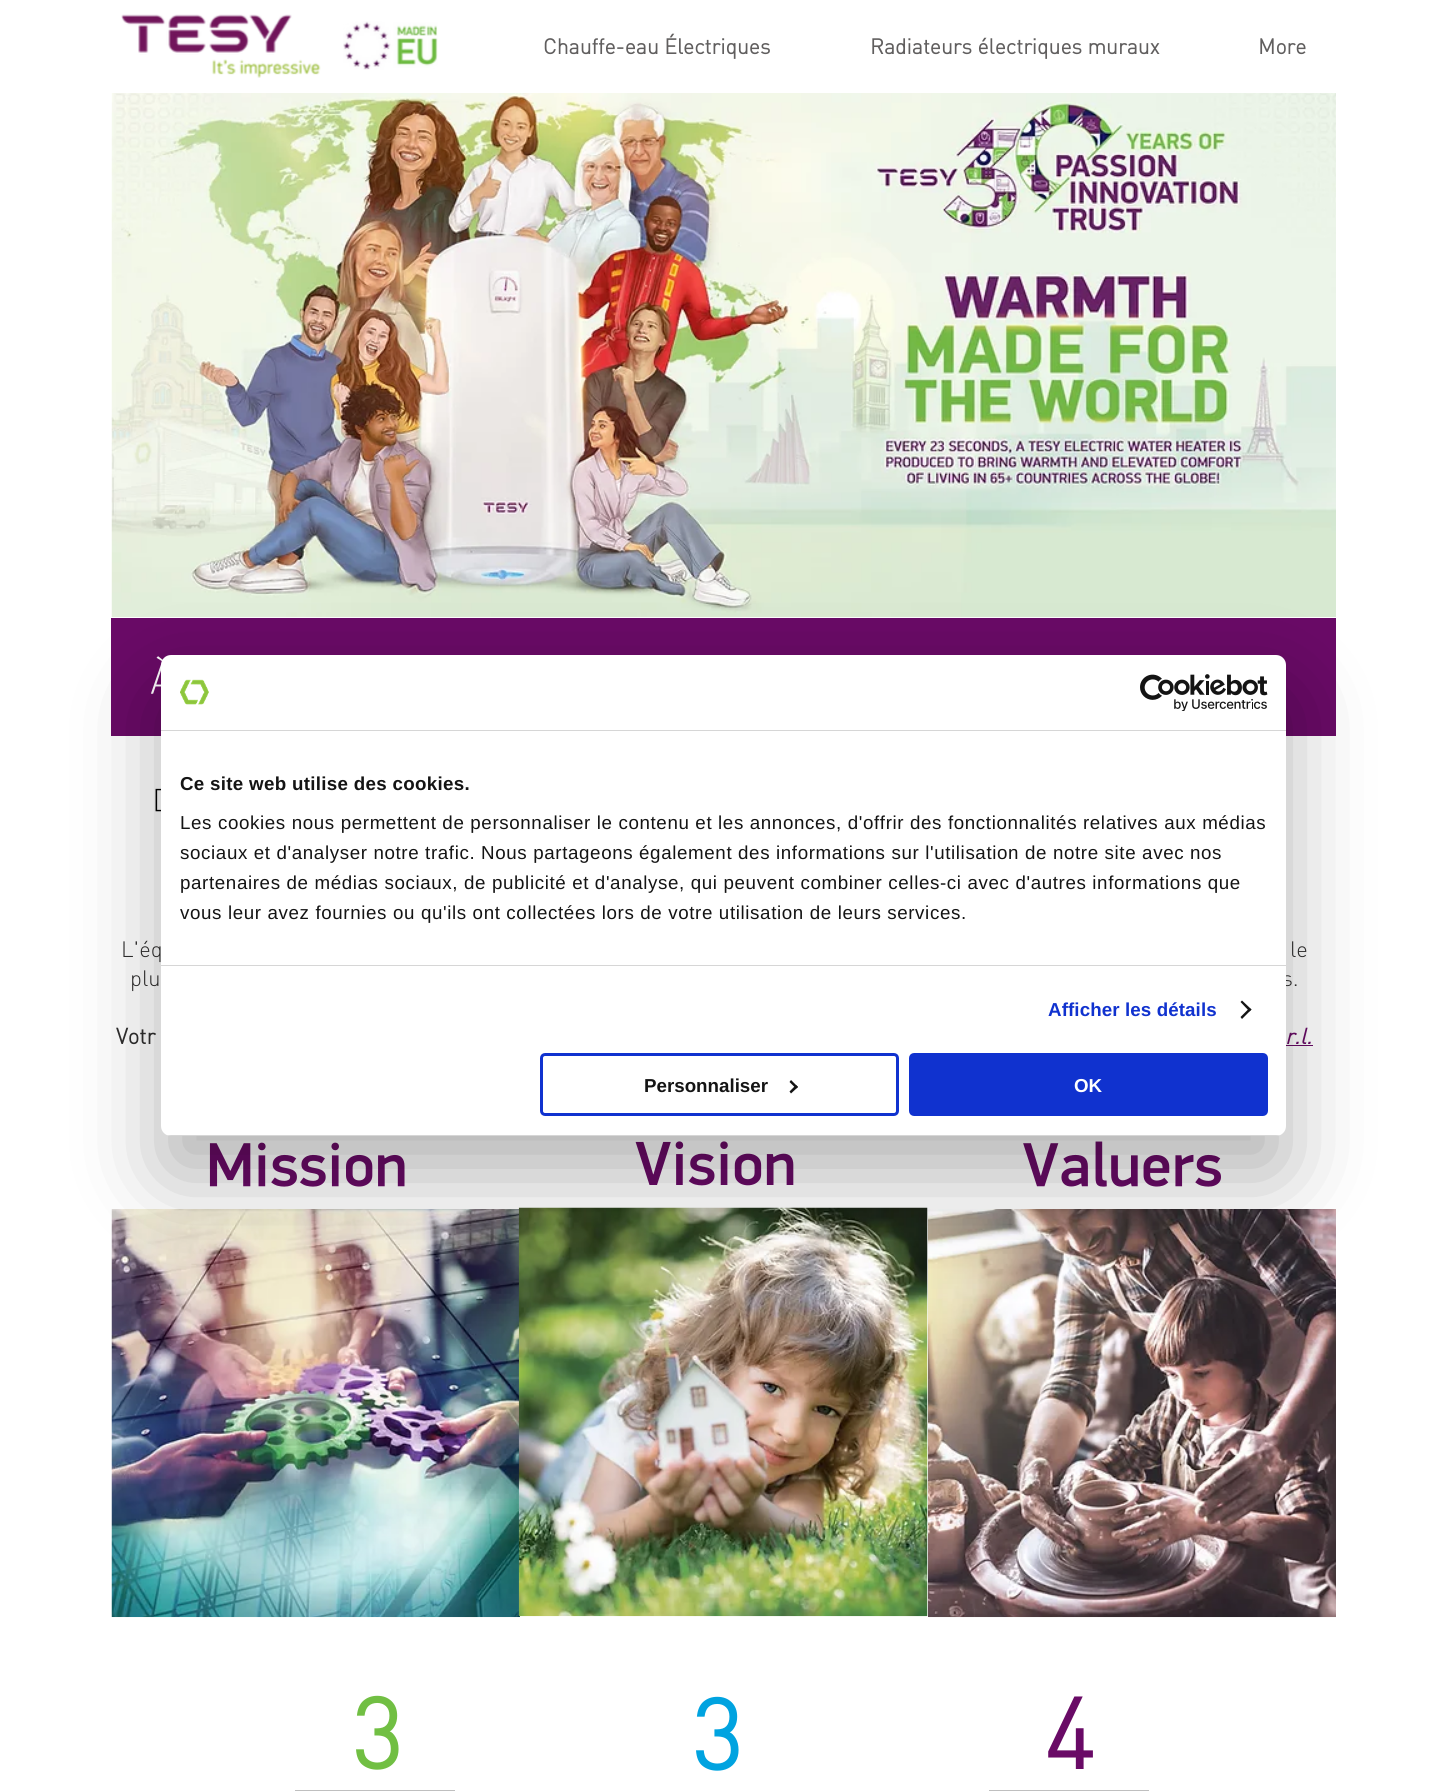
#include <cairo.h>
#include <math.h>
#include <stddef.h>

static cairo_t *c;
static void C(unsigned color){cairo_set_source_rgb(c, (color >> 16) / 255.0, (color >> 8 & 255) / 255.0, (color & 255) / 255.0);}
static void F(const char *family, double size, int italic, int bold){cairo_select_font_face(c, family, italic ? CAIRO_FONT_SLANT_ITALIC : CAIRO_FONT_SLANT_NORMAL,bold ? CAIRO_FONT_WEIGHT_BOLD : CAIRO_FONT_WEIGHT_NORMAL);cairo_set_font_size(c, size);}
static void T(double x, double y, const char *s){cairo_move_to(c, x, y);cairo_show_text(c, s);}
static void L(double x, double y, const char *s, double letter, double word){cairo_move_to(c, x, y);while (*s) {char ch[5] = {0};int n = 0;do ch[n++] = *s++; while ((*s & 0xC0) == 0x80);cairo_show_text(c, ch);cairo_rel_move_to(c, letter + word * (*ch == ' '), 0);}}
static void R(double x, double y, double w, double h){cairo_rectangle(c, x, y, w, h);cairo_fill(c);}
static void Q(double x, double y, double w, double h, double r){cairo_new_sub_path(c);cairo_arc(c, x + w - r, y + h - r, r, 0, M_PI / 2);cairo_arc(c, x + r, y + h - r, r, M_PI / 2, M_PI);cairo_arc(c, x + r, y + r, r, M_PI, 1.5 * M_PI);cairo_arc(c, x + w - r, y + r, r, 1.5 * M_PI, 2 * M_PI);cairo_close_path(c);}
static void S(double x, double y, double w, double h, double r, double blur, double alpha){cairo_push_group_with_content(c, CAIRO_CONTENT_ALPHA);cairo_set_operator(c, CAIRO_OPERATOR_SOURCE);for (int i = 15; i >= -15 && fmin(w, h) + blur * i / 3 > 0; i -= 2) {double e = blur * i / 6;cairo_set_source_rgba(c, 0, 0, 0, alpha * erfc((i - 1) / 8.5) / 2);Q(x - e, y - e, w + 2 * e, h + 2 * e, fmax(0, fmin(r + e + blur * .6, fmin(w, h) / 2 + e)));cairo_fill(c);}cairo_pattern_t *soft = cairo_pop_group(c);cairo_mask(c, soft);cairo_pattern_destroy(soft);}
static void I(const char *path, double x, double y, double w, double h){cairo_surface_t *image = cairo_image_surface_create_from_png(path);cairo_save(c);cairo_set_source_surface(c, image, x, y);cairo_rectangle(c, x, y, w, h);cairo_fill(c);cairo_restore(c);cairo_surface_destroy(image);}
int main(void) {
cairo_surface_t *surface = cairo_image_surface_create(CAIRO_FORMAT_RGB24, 1447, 1791);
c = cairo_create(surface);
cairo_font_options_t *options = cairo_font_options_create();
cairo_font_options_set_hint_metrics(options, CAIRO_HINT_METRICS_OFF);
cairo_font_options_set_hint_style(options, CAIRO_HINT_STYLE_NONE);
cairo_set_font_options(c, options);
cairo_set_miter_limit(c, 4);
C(0xffffff);
cairo_paint(c);
I("1.png",121,14,200,64);
I("2.png",343,21,95,49);
F("DIN",21.25,0,1);
C(0x605e5e);
T(543,54,"Chauffe-eau Électriques");
T(870,54,"Radiateurs électriques muraux");
T(1258,54,"More");
I("3.png",111,93,1225,524);
C(0x690a66);
R(111,618,1225,118);
I("4.png",151,656,12,38);
I("5.png",155,788,6,24);
F("DIN Light",22,0,0);
C(0x2f2e2e);
T(121,957,"L'éq");
T(1290,957,"le");
T(130,986,"plu");
T(1282,986,"s.");
F("DIN",22,0,1);
T(116,1044,"Votr");
F("DIN",22,1,1);
C(0x690a66);
T(1285,1044,"r.l.");
R(1286,1045,27,1);
I("6.png",209,1142,196,45);
I("7.png",635,1141,159,45);
I("8.png",1023,1141,198,46);
I("9.png",111,1209,409,409);
I("10.png",518,1207,410,410);
I("11.png",928,1209,408,409);
F("DIN",98,0,1);
C(0x71bf43);
T(352,1769,"3");
C(0x00a3e0);
T(692,1770,"3");
C(0x690a66);
T(1044,1769,"4");
C(0xbfbfbf);
R(295,1790,160,1);
R(989,1790,160,1);
C(0x000000);
S(161,695,1125,481,10,42.5,.3);
C(0xffffff);
Q(161,655,1125,481,10);
cairo_fill(c);
C(0xd6d6d6);
R(161,730,1125,1);
I("12.png",180,679,29,26);
I("13.png",1140,674,128,37);
R(161,965,1125,1);
F("Liberation Sans",18.75,0,1);
C(0x141414);
L(180,790,"Ce site web utilise des cookies.",.3,0);
F("Liberation Sans",18.75,0,0);
L(180,829,"Les cookies nous permettent de personnaliser le contenu et les annonces, d'offrir des fonctionnalités relatives aux médias",.62,0);
L(180,859,"sociaux et d'analyser notre trafic. Nous partageons également des informations sur l'utilisation de notre site avec nos",.62,0);
L(180,889,"partenaires de médias sociaux, de publicité et d'analyse, qui peuvent combiner celles-ci avec d'autres informations que",.62,0);
L(180,919,"vous leur avez fournies ou qu'ils ont collectées lors de votre utilisation de leurs services.",.62,0);
F("Liberation Sans",18.75,0,1);
C(0x1032cf);
L(1048,1016,"Afficher les détails",.1,0);
C(0x141414);
cairo_new_path(c);
cairo_move_to(c,1242,1000.5);
cairo_line_to(c,1251.5,1009.5);
cairo_line_to(c,1249.5,1011.5);
cairo_line_to(c,1240.5,1002);
cairo_close_path(c);
cairo_fill(c);
cairo_new_path(c);
cairo_move_to(c,1249.5,1008);
cairo_line_to(c,1251.5,1009.5);
cairo_line_to(c,1242,1019);
cairo_line_to(c,1240.5,1017);
cairo_close_path(c);
cairo_fill(c);
cairo_save(c);
Q(161,655,1125,481,10);
cairo_clip(c);
C(0xd6d6d6);
R(161,1135,1125,1);
cairo_restore(c);
Q(541.5,1054.5,356,60,3.5);
C(0x1032cf);
cairo_set_line_width(c,3);
cairo_stroke(c);
C(0x141414);
T(644,1092,"Personnaliser");
cairo_new_path(c);
cairo_move_to(c,791,1080);
cairo_line_to(c,798,1087);
cairo_line_to(c,796,1088.5);
cairo_line_to(c,789.5,1082);
cairo_close_path(c);
cairo_fill(c);
cairo_new_path(c);
cairo_move_to(c,796,1085);
cairo_line_to(c,798,1087);
cairo_line_to(c,791,1093.5);
cairo_line_to(c,789.5,1091.5);
cairo_close_path(c);
cairo_fill(c);
C(0x1032cf);
Q(910.5,1054.5,356,60,3.5);
cairo_fill_preserve(c);
cairo_stroke(c);
C(0xffffff);
T(1074,1092,"OK");
cairo_surface_write_to_png(surface, "o.png");
cairo_font_options_destroy(options);
cairo_destroy(c);
cairo_surface_destroy(surface);
return 0;
}
